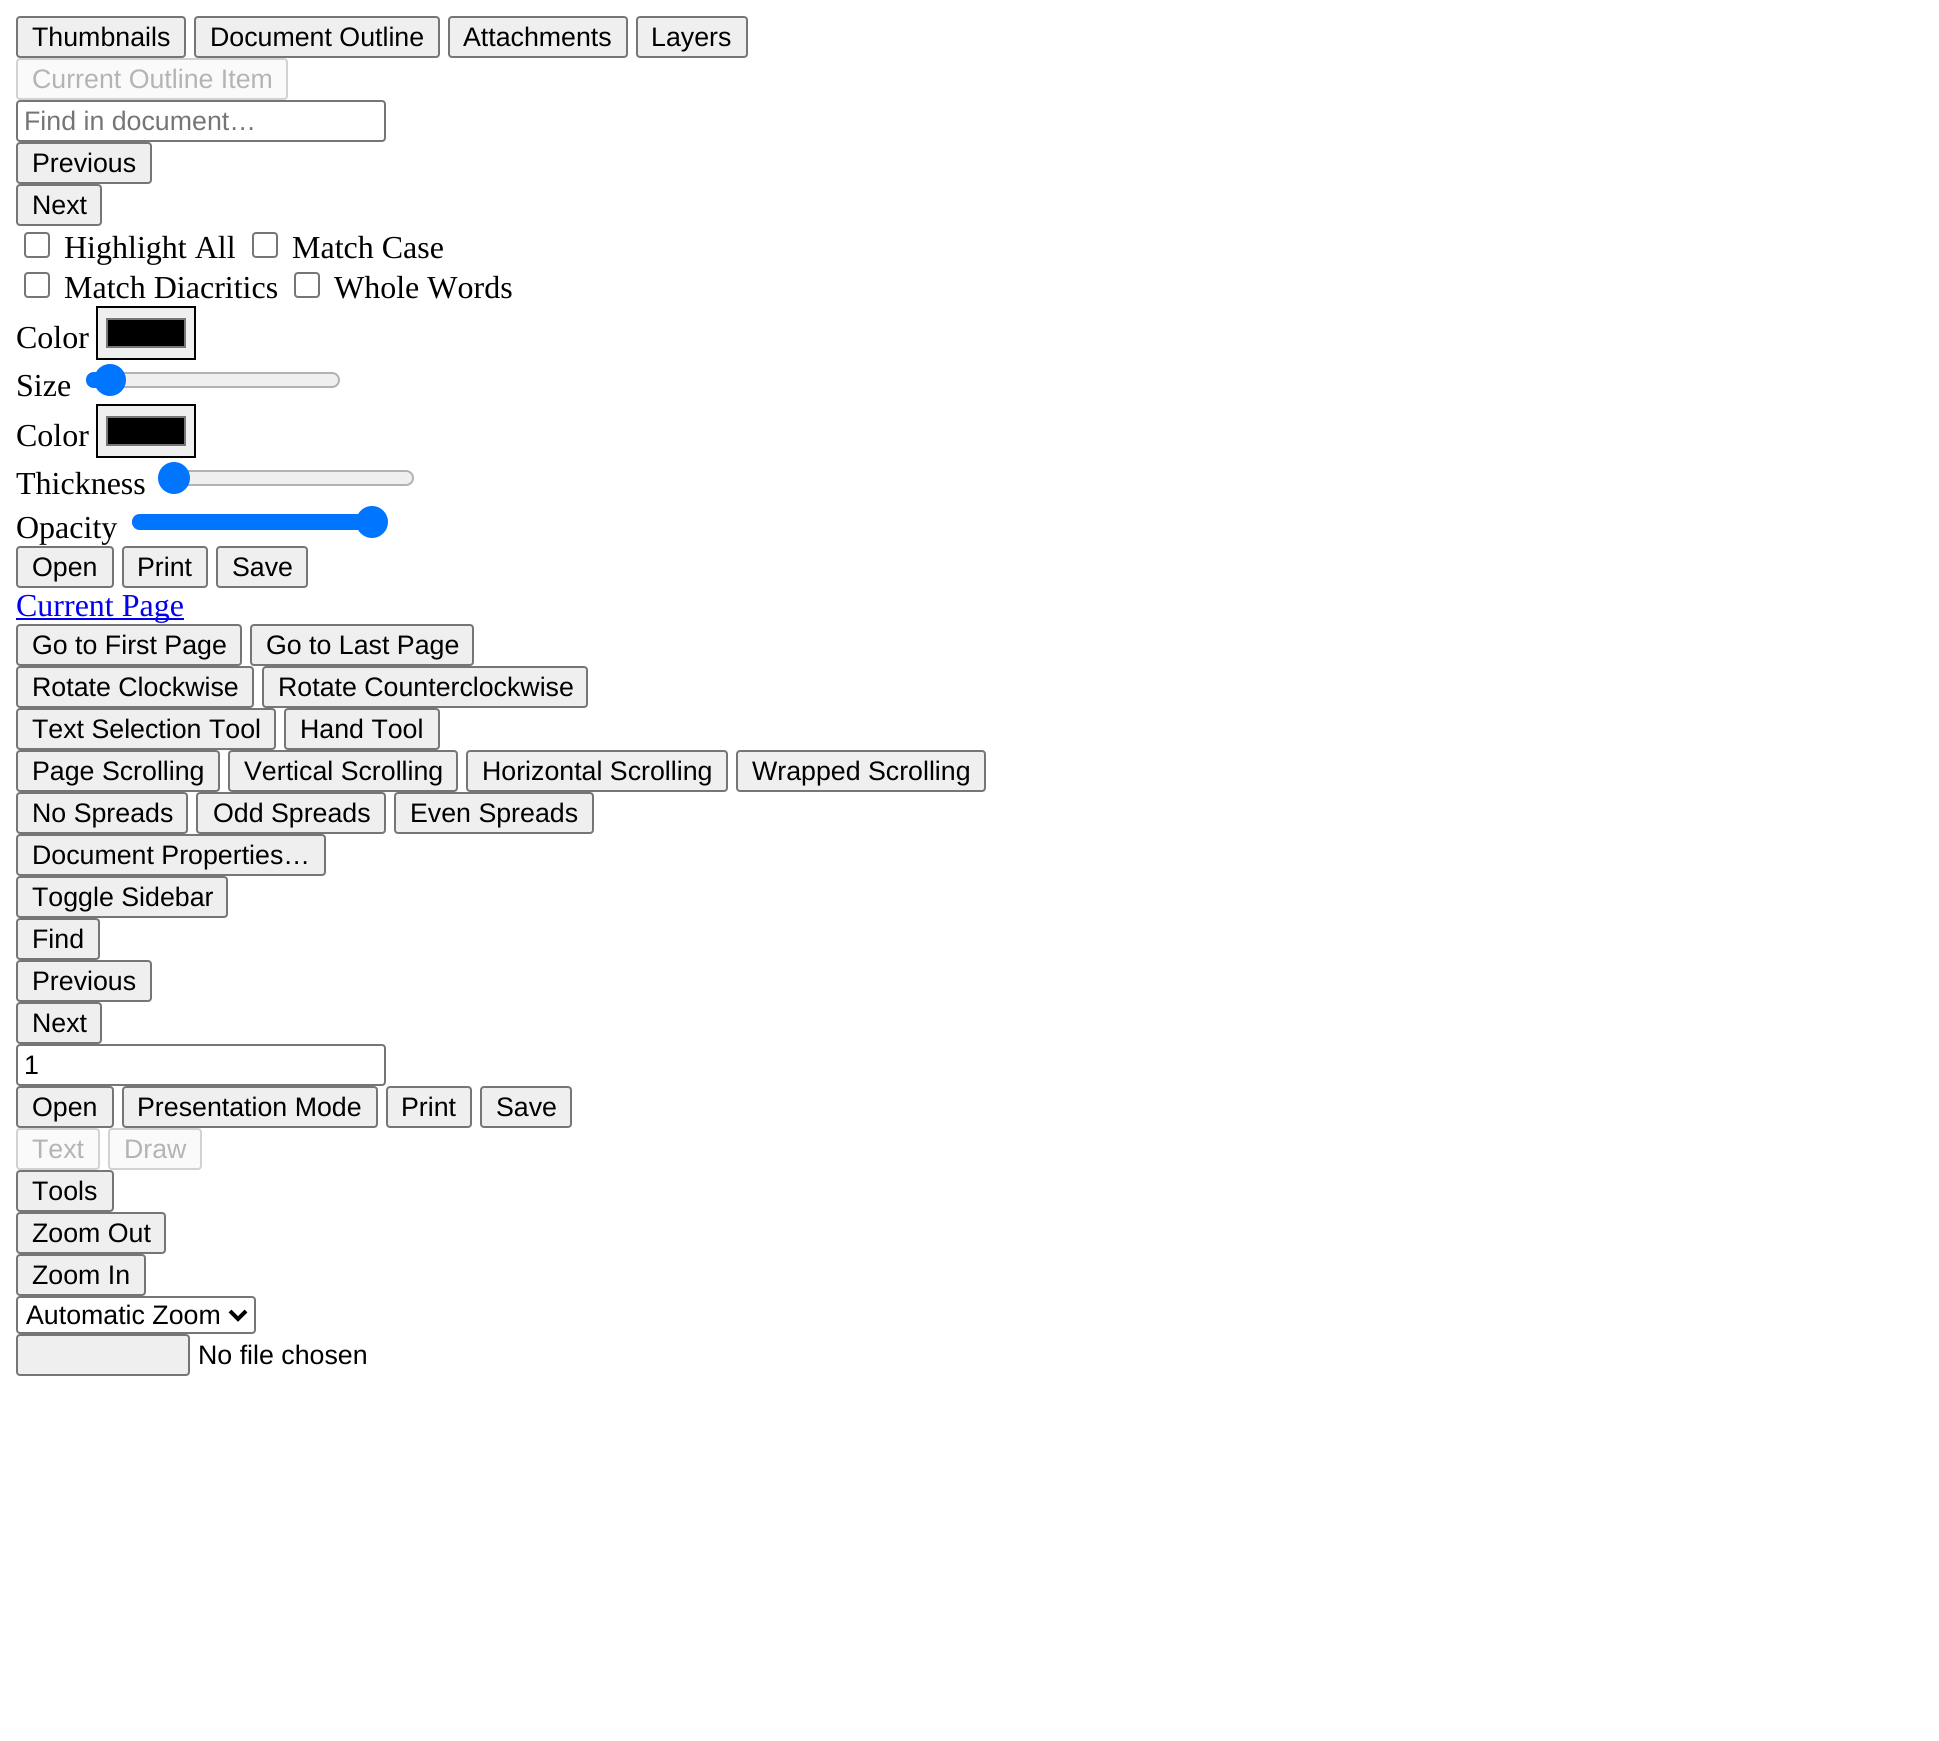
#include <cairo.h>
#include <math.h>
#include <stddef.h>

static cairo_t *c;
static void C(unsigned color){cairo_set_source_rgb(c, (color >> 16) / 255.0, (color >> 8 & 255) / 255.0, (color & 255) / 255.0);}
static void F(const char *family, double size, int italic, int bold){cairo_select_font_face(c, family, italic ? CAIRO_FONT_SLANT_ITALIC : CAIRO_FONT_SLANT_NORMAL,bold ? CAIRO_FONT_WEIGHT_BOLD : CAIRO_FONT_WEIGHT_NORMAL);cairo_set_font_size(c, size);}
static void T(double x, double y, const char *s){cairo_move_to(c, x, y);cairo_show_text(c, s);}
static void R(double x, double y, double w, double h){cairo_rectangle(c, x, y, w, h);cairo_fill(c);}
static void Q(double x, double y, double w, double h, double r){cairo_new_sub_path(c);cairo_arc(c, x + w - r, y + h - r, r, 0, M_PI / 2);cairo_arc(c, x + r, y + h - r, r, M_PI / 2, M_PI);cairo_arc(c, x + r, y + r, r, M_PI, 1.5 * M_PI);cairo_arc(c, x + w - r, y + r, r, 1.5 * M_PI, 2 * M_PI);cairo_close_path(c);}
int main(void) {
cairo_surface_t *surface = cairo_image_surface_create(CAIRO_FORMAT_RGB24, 1939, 1741);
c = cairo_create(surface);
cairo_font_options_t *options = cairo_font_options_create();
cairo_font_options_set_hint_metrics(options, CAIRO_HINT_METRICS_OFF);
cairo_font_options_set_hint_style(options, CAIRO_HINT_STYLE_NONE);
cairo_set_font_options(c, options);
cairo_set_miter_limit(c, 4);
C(0xffffff);
cairo_paint(c);
C(0xefefef);
Q(17,17,168,40,3);
cairo_fill_preserve(c);
C(0x767676);
cairo_stroke(c);
F("Liberation Sans",26.75,0,0);
C(0x000000);
T(32,46,"Thumbnails");
C(0xefefef);
Q(195,17,244,40,3);
cairo_fill_preserve(c);
C(0x767676);
cairo_stroke(c);
C(0x000000);
T(210,46,"Document Outline");
C(0xefefef);
Q(449,17,178,40,3);
cairo_fill_preserve(c);
C(0x767676);
cairo_stroke(c);
C(0x000000);
T(463,46,"Attachments");
C(0xefefef);
Q(637,17,110,40,3);
cairo_fill_preserve(c);
C(0x767676);
cairo_stroke(c);
C(0x000000);
T(651,46,"Layers");
C(0xfafafa);
Q(17,59,270,40,3);
cairo_fill_preserve(c);
C(0xd2d2d2);
cairo_stroke(c);
C(0xb4b4b4);
T(32,88,"Current Outline Item");
Q(17,101,368,40,3);
C(0x767676);
cairo_stroke(c);
C(0x757575);
T(24,130,"Find in document…");
C(0xefefef);
Q(17,143,134,40,3);
cairo_fill_preserve(c);
C(0x767676);
cairo_stroke(c);
C(0x000000);
T(32,172,"Previous");
C(0xefefef);
Q(17,185,84,40,3);
cairo_fill_preserve(c);
C(0x767676);
cairo_stroke(c);
C(0x000000);
T(32,214,"Next");
Q(25,233,24,24,3);
C(0x767676);
cairo_stroke(c);
F("Liberation Serif",32,0,0);
C(0x000000);
T(64,258,"Highlight All");
Q(253,233,24,24,3);
C(0x767676);
cairo_stroke(c);
C(0x000000);
T(292,258,"Match Case");
Q(25,273,24,24,3);
C(0x767676);
cairo_stroke(c);
C(0x000000);
T(64,298,"Match Diacritics");
Q(295,273,24,24,3);
C(0x767676);
cairo_stroke(c);
C(0x000000);
T(334,298,"Whole Words");
T(16,348,"Color");
C(0xefefef);
cairo_rectangle(c,97,307,98,52);
cairo_fill_preserve(c);
C(0x000000);
cairo_stroke(c);
cairo_rectangle(c,107,319,78,28);
cairo_fill_preserve(c);
C(0x777777);
cairo_stroke(c);
C(0x000000);
T(16,396,"Size");
C(0xefefef);
Q(87,373,252,14,7);
cairo_fill_preserve(c);
C(0xb2b2b2);
cairo_stroke(c);
C(0x0075ff);
cairo_new_path(c);
cairo_move_to(c,94,372);
cairo_line_to(c,110,372);
cairo_line_to(c,110,388);
cairo_line_to(c,94,388);
cairo_curve_to(c,89.5,388,86,384.5,86,380);
cairo_curve_to(c,86,375.5,89.5,372,94,372);
cairo_close_path(c);
cairo_fill(c);
cairo_arc(c,110,380,16,0,2 * M_PI);
cairo_fill(c);
C(0x000000);
T(16,446,"Color");
C(0xefefef);
cairo_rectangle(c,97,405,98,52);
cairo_fill_preserve(c);
C(0x000000);
cairo_stroke(c);
cairo_rectangle(c,107,417,78,28);
cairo_fill_preserve(c);
C(0x777777);
cairo_stroke(c);
C(0x000000);
T(16,494,"Thickness");
C(0xefefef);
Q(161,471,252,14,7);
cairo_fill_preserve(c);
C(0xb2b2b2);
cairo_stroke(c);
C(0x0075ff);
cairo_arc(c,174,478,16,0,2 * M_PI);
cairo_fill(c);
C(0x000000);
T(16,538,"Opacity");
Q(133,515,252,14,7);
C(0xb2b2b2);
cairo_stroke(c);
C(0x0075ff);
cairo_new_path(c);
cairo_move_to(c,140,514);
cairo_line_to(c,372,514);
cairo_line_to(c,372,530);
cairo_line_to(c,140,530);
cairo_curve_to(c,135.5,530,132,526.5,132,522);
cairo_curve_to(c,132,517.5,135.5,514,140,514);
cairo_close_path(c);
cairo_fill(c);
cairo_arc(c,372,522,16,0,2 * M_PI);
cairo_fill(c);
C(0xefefef);
Q(17,547,96,40,3);
cairo_fill_preserve(c);
C(0x767676);
cairo_stroke(c);
F("Liberation Sans",26.75,0,0);
C(0x000000);
T(32,576,"Open");
C(0xefefef);
Q(123,547,84,40,3);
cairo_fill_preserve(c);
C(0x767676);
cairo_stroke(c);
C(0x000000);
T(137,576,"Print");
C(0xefefef);
Q(217,547,90,40,3);
cairo_fill_preserve(c);
C(0x767676);
cairo_stroke(c);
C(0x000000);
T(232,576,"Save");
C(0x0000ee);
R(16,618,168,2);
F("Liberation Serif",32,0,0);
T(16,616,"Current Page");
C(0xefefef);
Q(17,625,224,40,3);
cairo_fill_preserve(c);
C(0x767676);
cairo_stroke(c);
F("Liberation Sans",26.75,0,0);
C(0x000000);
T(32,654,"Go to First Page");
C(0xefefef);
Q(251,625,222,40,3);
cairo_fill_preserve(c);
C(0x767676);
cairo_stroke(c);
C(0x000000);
T(266,654,"Go to Last Page");
C(0xefefef);
Q(17,667,236,40,3);
cairo_fill_preserve(c);
C(0x767676);
cairo_stroke(c);
C(0x000000);
T(32,696,"Rotate Clockwise");
C(0xefefef);
Q(263,667,324,40,3);
cairo_fill_preserve(c);
C(0x767676);
cairo_stroke(c);
C(0x000000);
T(278,696,"Rotate Counterclockwise");
C(0xefefef);
Q(17,709,258,40,3);
cairo_fill_preserve(c);
C(0x767676);
cairo_stroke(c);
C(0x000000);
T(32,738,"Text Selection Tool");
C(0xefefef);
Q(285,709,154,40,3);
cairo_fill_preserve(c);
C(0x767676);
cairo_stroke(c);
C(0x000000);
T(300,738,"Hand Tool");
C(0xefefef);
Q(17,751,202,40,3);
cairo_fill_preserve(c);
C(0x767676);
cairo_stroke(c);
C(0x000000);
T(32,780,"Page Scrolling");
C(0xefefef);
Q(229,751,228,40,3);
cairo_fill_preserve(c);
C(0x767676);
cairo_stroke(c);
C(0x000000);
T(244,780,"Vertical Scrolling");
C(0xefefef);
Q(467,751,260,40,3);
cairo_fill_preserve(c);
C(0x767676);
cairo_stroke(c);
C(0x000000);
T(482,780,"Horizontal Scrolling");
C(0xefefef);
Q(737,751,248,40,3);
cairo_fill_preserve(c);
C(0x767676);
cairo_stroke(c);
C(0x000000);
T(752,780,"Wrapped Scrolling");
C(0xefefef);
Q(17,793,170,40,3);
cairo_fill_preserve(c);
C(0x767676);
cairo_stroke(c);
C(0x000000);
T(32,822,"No Spreads");
C(0xefefef);
Q(197,793,188,40,3);
cairo_fill_preserve(c);
C(0x767676);
cairo_stroke(c);
C(0x000000);
T(213,822,"Odd Spreads");
C(0xefefef);
Q(395,793,198,40,3);
cairo_fill_preserve(c);
C(0x767676);
cairo_stroke(c);
C(0x000000);
T(410,822,"Even Spreads");
C(0xefefef);
Q(17,835,308,40,3);
cairo_fill_preserve(c);
C(0x767676);
cairo_stroke(c);
C(0x000000);
T(32,864,"Document Properties…");
C(0xefefef);
Q(17,877,210,40,3);
cairo_fill_preserve(c);
C(0x767676);
cairo_stroke(c);
C(0x000000);
T(32,906,"Toggle Sidebar");
C(0xefefef);
Q(17,919,82,40,3);
cairo_fill_preserve(c);
C(0x767676);
cairo_stroke(c);
C(0x000000);
T(32,948,"Find");
C(0xefefef);
Q(17,961,134,40,3);
cairo_fill_preserve(c);
C(0x767676);
cairo_stroke(c);
C(0x000000);
T(32,990,"Previous");
C(0xefefef);
Q(17,1003,84,40,3);
cairo_fill_preserve(c);
C(0x767676);
cairo_stroke(c);
C(0x000000);
T(32,1032,"Next");
Q(17,1045,368,40,3);
C(0x767676);
cairo_stroke(c);
C(0x000000);
T(24,1074,"1");
C(0xefefef);
Q(17,1087,96,40,3);
cairo_fill_preserve(c);
C(0x767676);
cairo_stroke(c);
C(0x000000);
T(32,1116,"Open");
C(0xefefef);
Q(123,1087,254,40,3);
cairo_fill_preserve(c);
C(0x767676);
cairo_stroke(c);
C(0x000000);
T(137,1116,"Presentation Mode");
C(0xefefef);
Q(387,1087,84,40,3);
cairo_fill_preserve(c);
C(0x767676);
cairo_stroke(c);
C(0x000000);
T(401,1116,"Print");
C(0xefefef);
Q(481,1087,90,40,3);
cairo_fill_preserve(c);
C(0x767676);
cairo_stroke(c);
C(0x000000);
T(496,1116,"Save");
C(0xfafafa);
Q(17,1129,82,40,3);
cairo_fill_preserve(c);
C(0xd2d2d2);
cairo_stroke(c);
C(0xb4b4b4);
T(32,1158,"Text");
C(0xfafafa);
Q(109,1129,92,40,3);
cairo_fill_preserve(c);
C(0xd2d2d2);
cairo_stroke(c);
C(0xb4b4b4);
T(124,1158,"Draw");
C(0xefefef);
Q(17,1171,96,40,3);
cairo_fill_preserve(c);
C(0x767676);
cairo_stroke(c);
C(0x000000);
T(32,1200,"Tools");
C(0xefefef);
Q(17,1213,148,40,3);
cairo_fill_preserve(c);
C(0x767676);
cairo_stroke(c);
C(0x000000);
T(32,1242,"Zoom Out");
C(0xefefef);
Q(17,1255,128,40,3);
cairo_fill_preserve(c);
C(0x767676);
cairo_stroke(c);
C(0x000000);
T(32,1284,"Zoom In");
Q(17,1297,238,36,3);
C(0x767676);
cairo_stroke(c);
cairo_new_path(c);
cairo_move_to(c,230,1311);
cairo_line_to(c,238,1319);
cairo_line_to(c,246,1311);
C(0x000000);
cairo_set_line_width(c,4);
cairo_stroke(c);
T(26,1324,"Automatic Zoom");
C(0xefefef);
Q(17,1335,172,40,3);
cairo_fill_preserve(c);
C(0x767676);
cairo_set_line_width(c,2);
cairo_stroke(c);
C(0x000000);
T(198,1364,"No file chosen");
cairo_surface_write_to_png(surface, "o.png");
cairo_font_options_destroy(options);
cairo_destroy(c);
cairo_surface_destroy(surface);
return 0;
}
